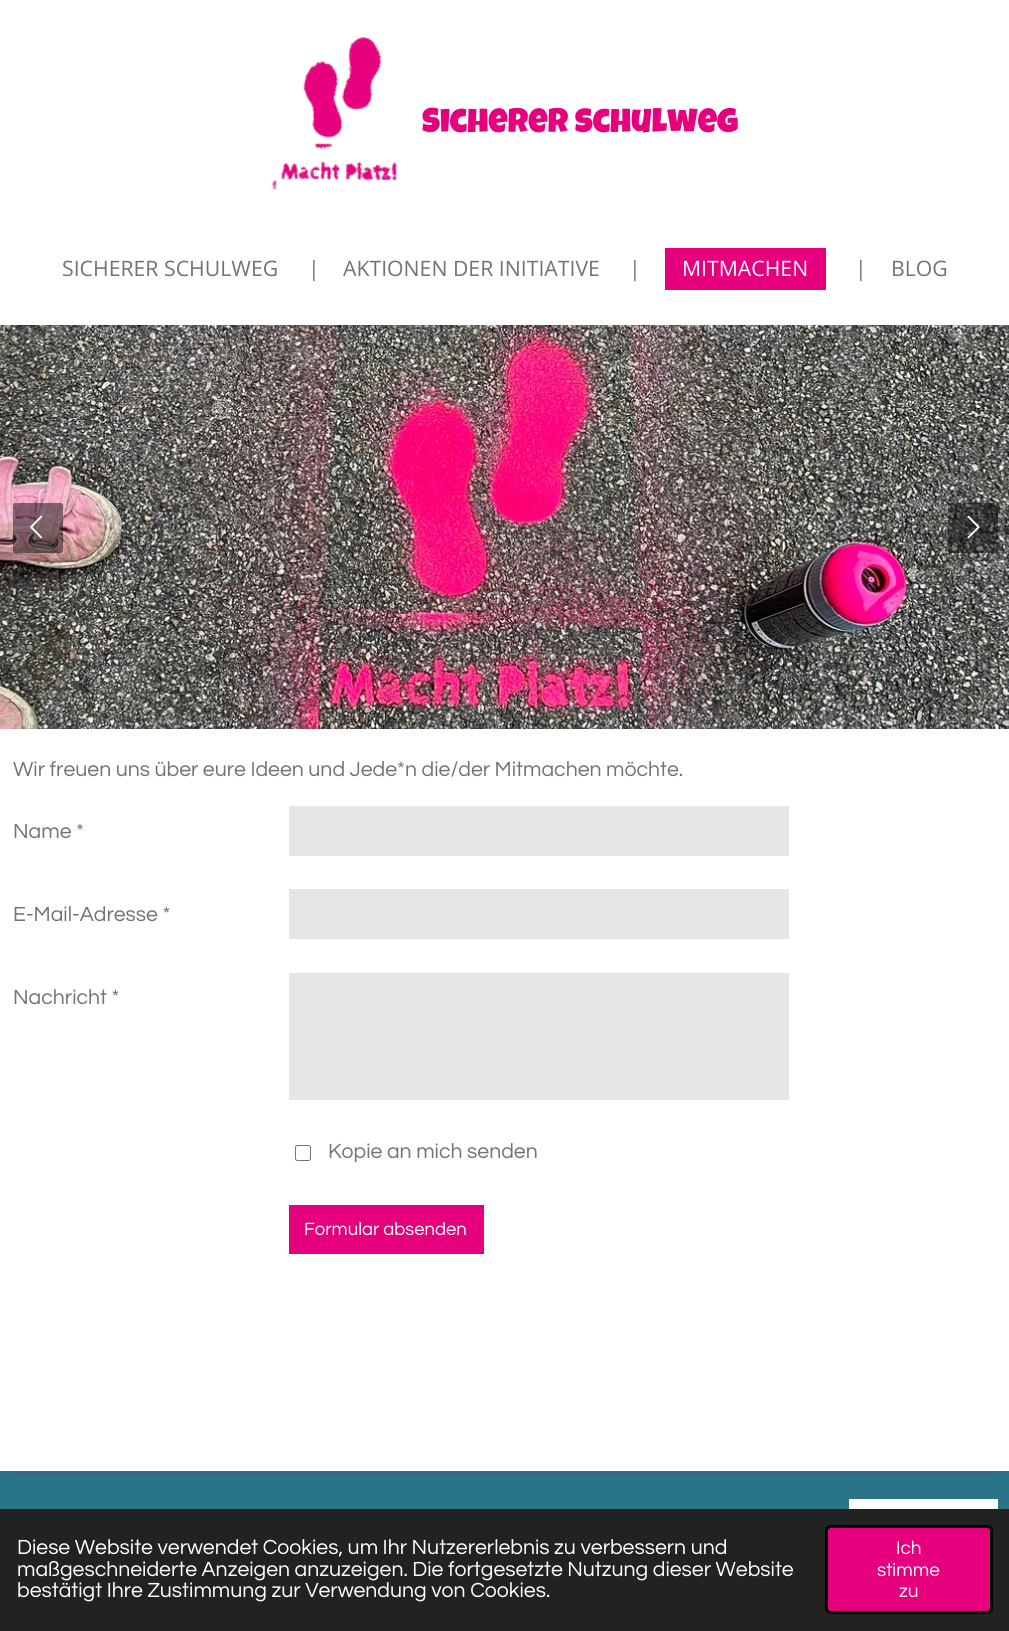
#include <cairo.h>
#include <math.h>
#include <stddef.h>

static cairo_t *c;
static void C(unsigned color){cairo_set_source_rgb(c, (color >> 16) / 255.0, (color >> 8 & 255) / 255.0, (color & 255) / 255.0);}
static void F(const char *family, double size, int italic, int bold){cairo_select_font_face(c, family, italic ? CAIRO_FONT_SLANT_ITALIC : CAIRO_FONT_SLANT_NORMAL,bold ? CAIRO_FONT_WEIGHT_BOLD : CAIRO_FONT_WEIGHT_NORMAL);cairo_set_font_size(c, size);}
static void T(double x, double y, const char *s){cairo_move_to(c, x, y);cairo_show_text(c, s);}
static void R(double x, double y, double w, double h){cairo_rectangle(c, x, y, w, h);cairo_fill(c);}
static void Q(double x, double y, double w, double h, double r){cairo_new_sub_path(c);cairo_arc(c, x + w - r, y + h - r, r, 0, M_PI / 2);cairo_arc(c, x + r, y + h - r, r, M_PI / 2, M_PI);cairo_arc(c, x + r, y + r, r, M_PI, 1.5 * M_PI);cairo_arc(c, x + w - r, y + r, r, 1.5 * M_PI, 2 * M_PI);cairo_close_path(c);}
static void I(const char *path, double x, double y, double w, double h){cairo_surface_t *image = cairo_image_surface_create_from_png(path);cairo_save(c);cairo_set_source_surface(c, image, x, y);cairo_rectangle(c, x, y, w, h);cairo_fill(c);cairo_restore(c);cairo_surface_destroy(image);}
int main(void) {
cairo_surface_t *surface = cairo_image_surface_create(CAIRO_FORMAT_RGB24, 1009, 1631);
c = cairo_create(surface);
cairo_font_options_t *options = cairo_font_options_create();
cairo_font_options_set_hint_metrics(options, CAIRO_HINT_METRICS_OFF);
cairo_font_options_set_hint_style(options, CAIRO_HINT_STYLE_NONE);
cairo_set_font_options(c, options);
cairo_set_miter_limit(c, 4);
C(0xffffff);
cairo_paint(c);
I("1.png",271,37,126,153);
F("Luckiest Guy",33.75,0,0);
C(0xe6007e);
T(422,132,"Sicherer schulweg");
F("Open Sans",21.25,0,0);
C(0x737373);
T(62,276,"SICHERER SCHULWEG");
T(308,276,"|");
T(343,276,"AKTIONEN DER INITIATIVE");
T(629,276,"|");
C(0xe6007e);
R(665,248,161,42);
C(0xffffff);
T(682,276,"MITMACHEN");
C(0x737373);
T(855,276,"|");
T(891,276,"BLOG");
I("2.png",0,325,1009,404);
cairo_set_source_rgba(c,0.059,0.059,0.059,0.5);
Q(13,503,50,50,2.5);
cairo_fill(c);
I("3.png",30,515,13,24);
Q(948,503,50,50,2.5);
cairo_fill(c);
I("4.png",967,515,13,24);
F("Questrial",21.25,0,0);
C(0x737373);
T(13,776,"Wir freuen uns über eure Ideen und Jede*n die/der Mitmachen möchte.");
T(13,838,"Name *");
C(0xe6e6e6);
R(289,806,500,50);
C(0x737373);
T(13,921,"E-Mail-Adresse *");
C(0xe6e6e6);
R(289,889,500,50);
C(0x737373);
T(13,1004,"Nachricht *");
C(0xe6e6e6);
R(289,973,500,127);
Q(295.5,1145.5,15,15,2);
C(0x767676);
cairo_set_line_width(c,1);
cairo_stroke(c);
C(0x737373);
T(328,1158,"Kopie an mich senden");
C(0xe6007e);
R(289,1205,195,49);
F("Questrial",18.5,0,0);
C(0xffffff);
T(304,1235,"Formular absenden");
C(0x297487);
R(0,1471,1009,38);
C(0x456386);
R(13,1471,985,3);
C(0xffffff);
R(849,1499,149,10);
C(0x222222);
R(0,1509,1009,122);
F("Questrial",21.25,0,0);
C(0xffffff);
T(17,1554,"Diese Website verwendet Cookies, um Ihr Nutzererlebnis zu verbessern und");
T(17,1576,"maßgeschneiderte Anzeigen anzuzeigen. Die fortgesetzte Nutzung dieser Website");
T(17,1597,"bestätigt Ihre Zustimmung zur Verwendung von Cookies.");
C(0xe6007e);
Q(826.5,1526.5,165,86,4.5);
cairo_fill_preserve(c);
C(0x000000);
cairo_set_line_width(c,3);
cairo_stroke(c);
F("Questrial",19,0,0);
C(0xffffff);
T(896,1554,"Ich");
T(877,1576,"stimme");
T(899,1597,"zu");
cairo_surface_write_to_png(surface, "o.png");
cairo_font_options_destroy(options);
cairo_destroy(c);
cairo_surface_destroy(surface);
return 0;
}
